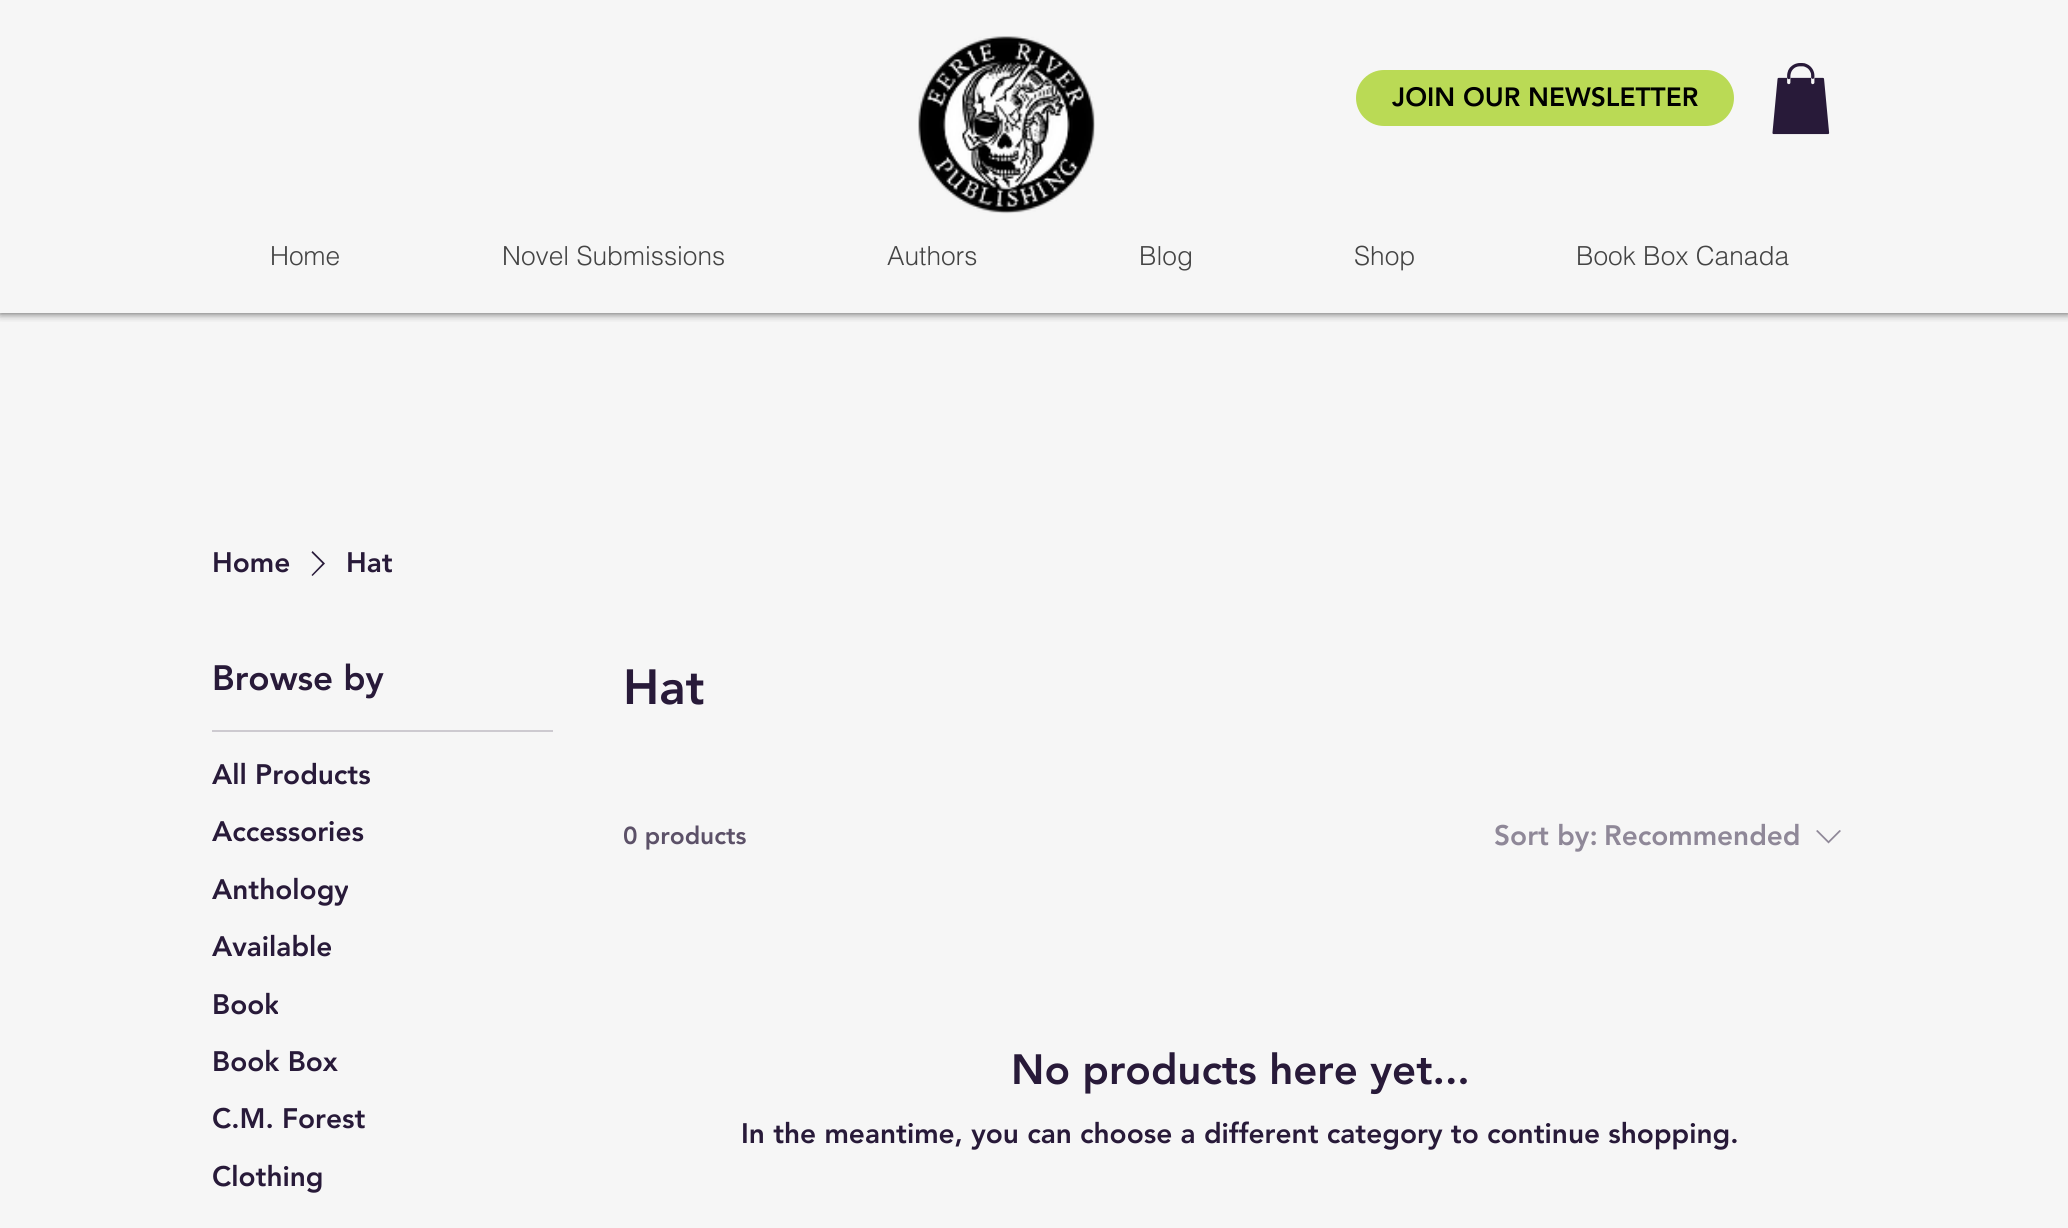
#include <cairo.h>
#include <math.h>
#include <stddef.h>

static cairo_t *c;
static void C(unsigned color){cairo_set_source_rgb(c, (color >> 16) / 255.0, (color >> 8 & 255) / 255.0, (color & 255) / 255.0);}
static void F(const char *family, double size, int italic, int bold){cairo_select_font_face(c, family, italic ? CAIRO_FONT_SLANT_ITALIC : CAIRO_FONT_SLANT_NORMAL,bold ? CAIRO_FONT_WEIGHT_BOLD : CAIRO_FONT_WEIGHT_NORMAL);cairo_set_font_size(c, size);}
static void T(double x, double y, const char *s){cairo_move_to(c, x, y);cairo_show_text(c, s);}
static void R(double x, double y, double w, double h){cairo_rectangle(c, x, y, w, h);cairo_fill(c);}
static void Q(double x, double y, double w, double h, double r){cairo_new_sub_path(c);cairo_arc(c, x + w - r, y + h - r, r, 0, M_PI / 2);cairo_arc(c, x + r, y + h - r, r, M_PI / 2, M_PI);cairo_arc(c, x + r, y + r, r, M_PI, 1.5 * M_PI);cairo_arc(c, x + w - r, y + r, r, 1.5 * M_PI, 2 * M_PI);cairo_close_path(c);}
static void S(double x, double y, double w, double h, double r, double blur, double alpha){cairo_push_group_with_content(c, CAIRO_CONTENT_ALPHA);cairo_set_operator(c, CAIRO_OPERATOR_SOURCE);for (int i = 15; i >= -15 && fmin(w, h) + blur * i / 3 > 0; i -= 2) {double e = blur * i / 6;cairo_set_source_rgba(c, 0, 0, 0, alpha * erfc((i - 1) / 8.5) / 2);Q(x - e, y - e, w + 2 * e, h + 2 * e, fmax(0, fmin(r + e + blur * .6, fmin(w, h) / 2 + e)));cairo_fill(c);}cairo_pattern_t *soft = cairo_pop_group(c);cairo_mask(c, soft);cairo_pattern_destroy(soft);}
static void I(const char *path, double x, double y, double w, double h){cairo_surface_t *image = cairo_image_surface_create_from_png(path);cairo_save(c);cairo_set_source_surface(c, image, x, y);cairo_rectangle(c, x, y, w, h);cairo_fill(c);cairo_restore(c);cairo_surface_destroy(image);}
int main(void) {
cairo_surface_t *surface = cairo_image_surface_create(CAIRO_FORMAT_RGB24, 2068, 1228);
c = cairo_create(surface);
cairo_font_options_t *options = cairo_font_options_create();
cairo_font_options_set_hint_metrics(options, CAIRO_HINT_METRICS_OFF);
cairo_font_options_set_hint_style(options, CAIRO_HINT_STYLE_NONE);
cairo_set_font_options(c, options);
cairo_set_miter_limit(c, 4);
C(0xf6f6f6);
cairo_paint(c);
cairo_save(c);
cairo_rectangle(c,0,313,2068,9);
cairo_clip(c);
C(0x000000);
S(0,0,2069,313,0,4.5,.7);
cairo_restore(c);
I("1.png",918,36,177,178);
C(0xbada55);
Q(1356,70,378,56,28);
cairo_fill(c);
F("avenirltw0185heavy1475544 Black",26.25,0,0);
C(0x000000);
T(1392,106,"JOIN OUR NEWSLETTER");
I("2.png",1772,63,58,72);
F("helvetica Light",26.25,0,0);
C(0x444444);
T(270,265,"Home");
T(502,265,"Novel Submissions");
T(887,265,"Authors");
T(1139,265,"Blog");
T(1354,265,"Shop");
T(1576,265,"Book Box Canada");
F("avenirltw0185heavy1475544 Black",28,0,0);
C(0x281a39);
T(212,572,"Home");
cairo_set_fill_rule(c,CAIRO_FILL_RULE_EVEN_ODD);
cairo_new_path(c);
cairo_move_to(c,312.5,551);
cairo_line_to(c,325,563.5);
cairo_line_to(c,312.5,576);
cairo_line_to(c,311.5,575);
cairo_line_to(c,322.5,563.5);
cairo_line_to(c,311.5,552.5);
cairo_close_path(c);
cairo_fill(c);
T(346,572,"Hat");
C(0xcdcad0);
R(212,730,341,2);
F("avenirltw0185heavy1475544 Black",35,0,0);
C(0x281a39);
T(212,690,"Browse by");
F("avenirltw0185heavy1475544 Black",28,0,0);
T(212,784,"All Products");
T(212,841,"Accessories");
cairo_save(c);
cairo_set_fill_rule(c,CAIRO_FILL_RULE_WINDING);
cairo_rectangle(c,212,873,136,35);
cairo_clip(c);
T(212,899,"Anthology");
cairo_restore(c);
T(212,956,"Available");
cairo_save(c);
cairo_set_fill_rule(c,CAIRO_FILL_RULE_WINDING);
cairo_rectangle(c,212,987,66,37);
cairo_clip(c);
T(212,1014,"Book");
cairo_restore(c);
T(212,1071,"Book Box");
T(212,1128,"C.M. Forest");
T(212,1186,"Clothing");
F("avenirltw0185heavy1475544 Black",49,0,0);
T(623,704,"Hat");
F("avenirltw0185heavy1475544 Black",24.5,0,0);
C(0x5c5168);
T(623,844,"0 products");
F("avenirltw0185heavy1475544 Black",28,0,0);
C(0x8f8898);
T(1494,845,"Sort by:");
T(1604,845,"Recommended");
cairo_new_path(c);
cairo_move_to(c,1839.5,830);
cairo_line_to(c,1841,831);
cairo_line_to(c,1828.5,843.5);
cairo_line_to(c,1816,831);
cairo_line_to(c,1817.5,830);
cairo_line_to(c,1828.5,841);
cairo_close_path(c);
cairo_fill(c);
F("avenirltw0185heavy1475544 Black",42,0,0);
C(0x281a39);
T(1011,1084,"No products here yet...");
F("avenirltw0185heavy1475544 Black",28,0,0);
T(741,1143,"In the meantime, you can choose a different category to continue shopping.");
cairo_surface_write_to_png(surface, "o.png");
cairo_font_options_destroy(options);
cairo_destroy(c);
cairo_surface_destroy(surface);
return 0;
}
